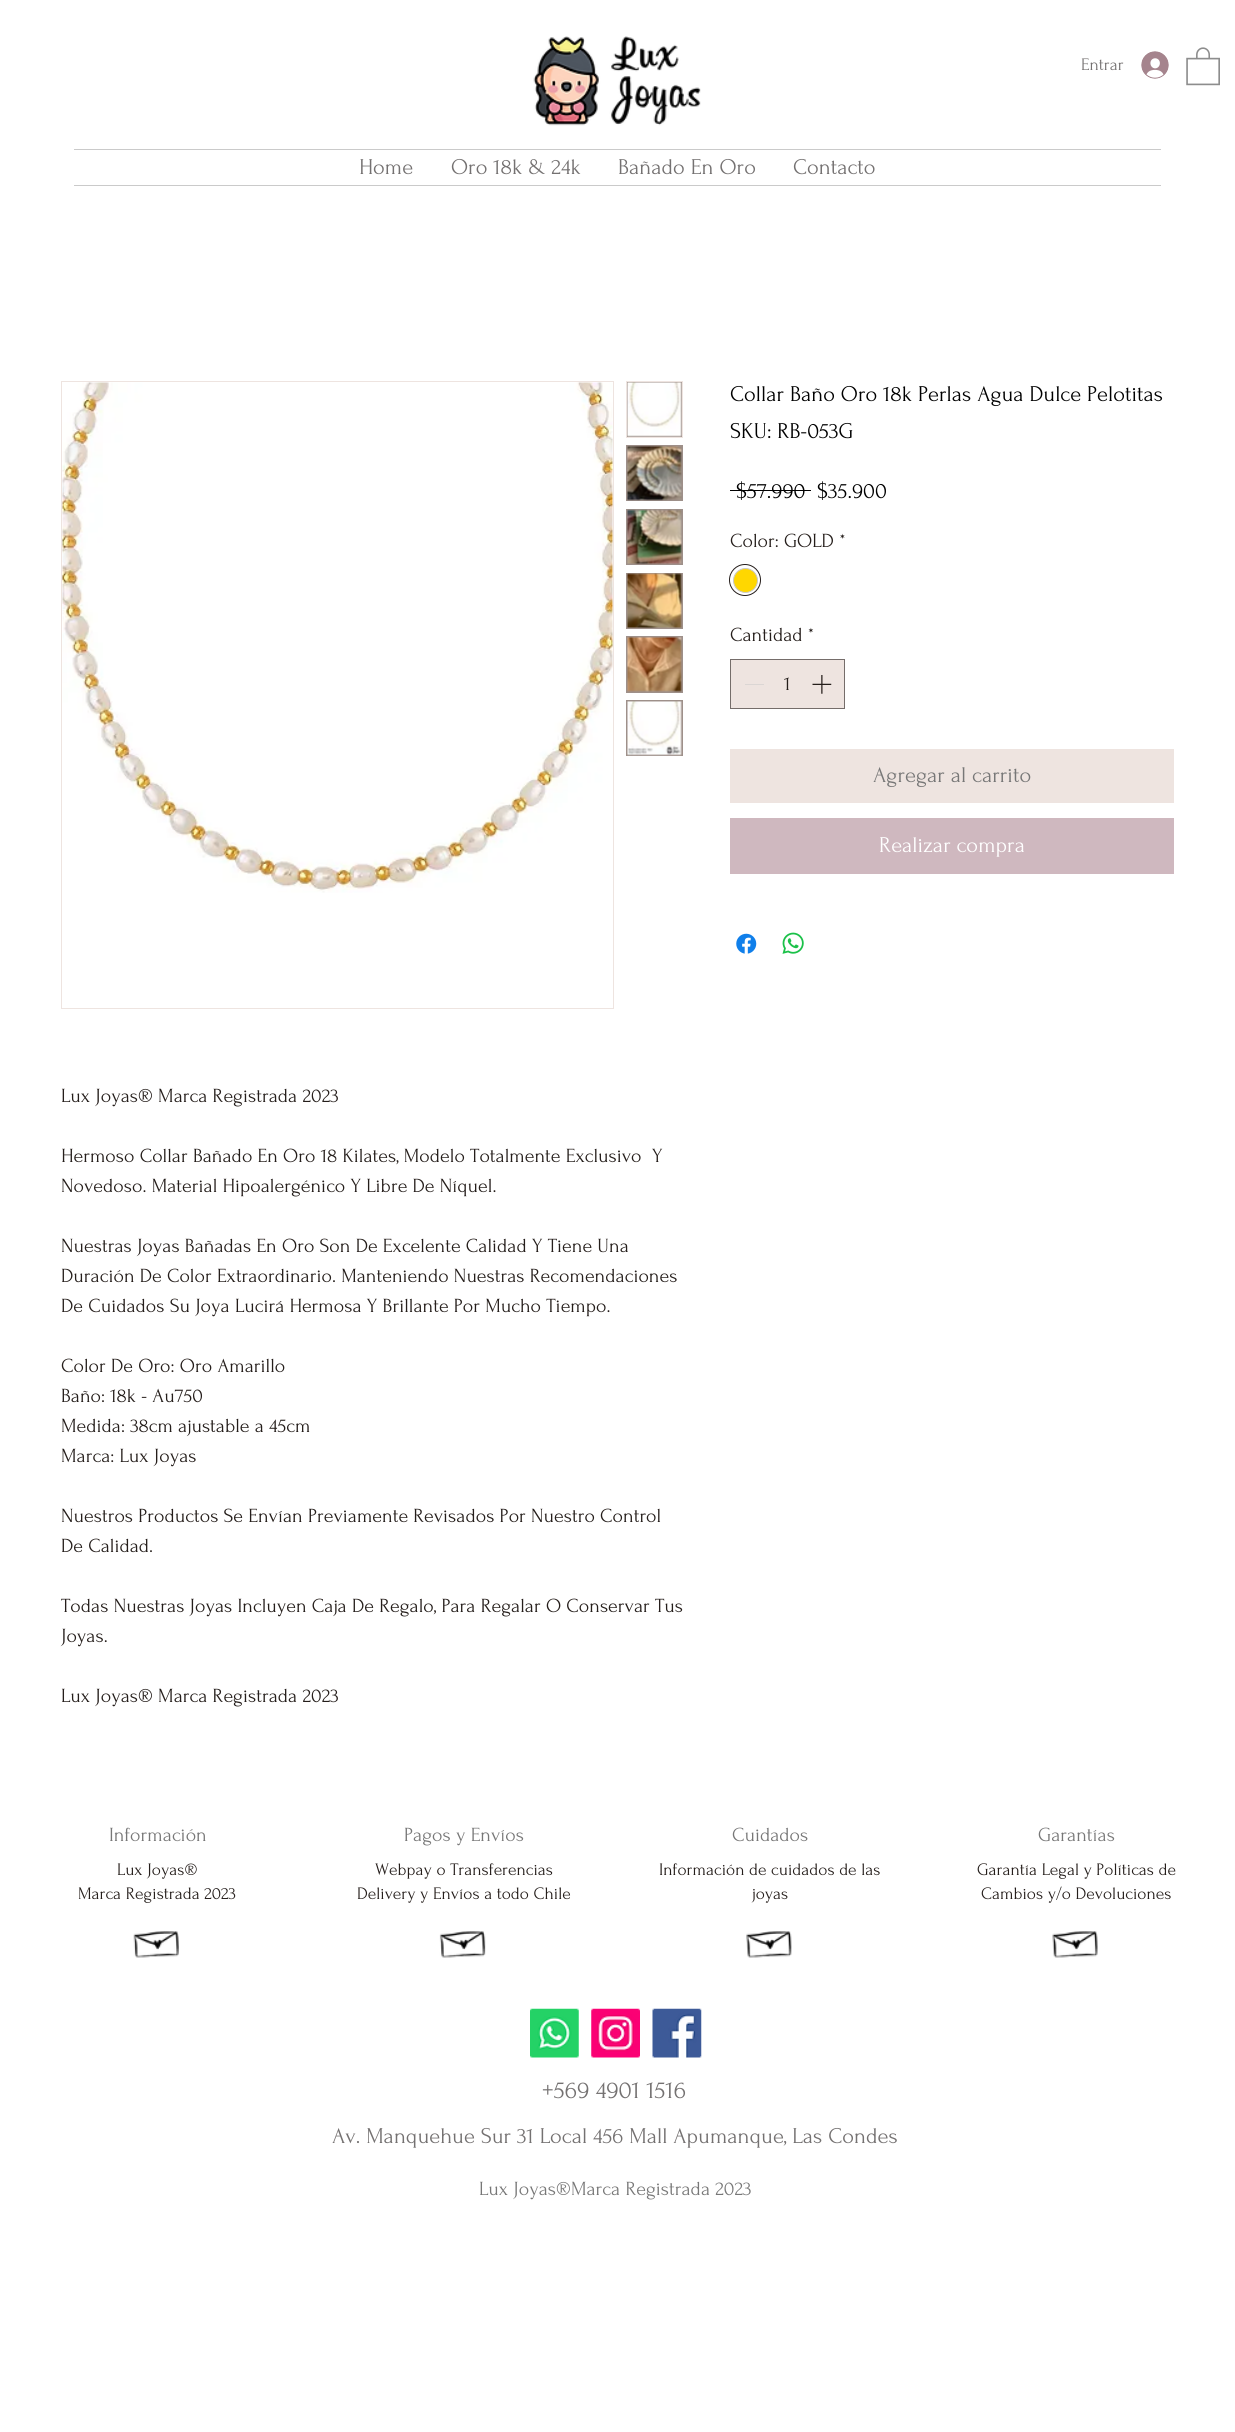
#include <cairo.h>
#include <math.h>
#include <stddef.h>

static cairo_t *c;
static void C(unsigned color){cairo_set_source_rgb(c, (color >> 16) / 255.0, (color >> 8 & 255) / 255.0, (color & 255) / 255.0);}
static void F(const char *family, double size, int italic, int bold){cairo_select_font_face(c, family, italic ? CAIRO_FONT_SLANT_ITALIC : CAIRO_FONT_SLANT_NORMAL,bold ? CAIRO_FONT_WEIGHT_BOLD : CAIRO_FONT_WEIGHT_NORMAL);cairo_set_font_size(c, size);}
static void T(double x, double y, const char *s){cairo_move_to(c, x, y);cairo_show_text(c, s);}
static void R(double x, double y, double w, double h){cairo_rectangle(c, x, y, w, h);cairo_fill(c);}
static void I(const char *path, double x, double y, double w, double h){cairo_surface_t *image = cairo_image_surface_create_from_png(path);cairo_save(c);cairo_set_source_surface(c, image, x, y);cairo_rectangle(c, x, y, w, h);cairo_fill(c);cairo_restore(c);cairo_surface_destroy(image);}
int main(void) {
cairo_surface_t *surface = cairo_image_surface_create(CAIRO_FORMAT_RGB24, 1235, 2432);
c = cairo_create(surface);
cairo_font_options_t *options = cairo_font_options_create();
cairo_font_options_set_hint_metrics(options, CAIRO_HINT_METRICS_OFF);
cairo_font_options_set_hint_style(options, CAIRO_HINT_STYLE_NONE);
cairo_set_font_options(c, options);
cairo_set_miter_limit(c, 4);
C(0xffffff);
cairo_paint(c);
I("1.png",533,36,168,90);
F("Forum",17.5,0,0);
C(0x747171);
T(1081,70,"Entrar");
I("2.png",1141,51,28,28);
I("3.png",1186,47,34,39);
C(0xcacaca);
R(74,149,1087,1);
R(74,185,1087,1);
F("Forum",22.5,0,0);
C(0x747171);
T(359,174,"Home");
T(451,174,"Oro 18k & 24k");
T(618,174,"Bañado En Oro");
T(793,174,"Contacto");
C(0x000000);
T(730,401,"Collar Baño Oro 18k Perlas Agua Dulce Pelotitas");
T(730,438,"SKU: RB-053G");
T(736,498,"$57.990");
R(730,490,81,1);
T(817,498,"$35.900");
F("Forum",20,0,0);
C(0x251e1b);
T(730,547,"Color: GOLD *");
cairo_new_path(c);
cairo_arc(c,745,580,15.5,0,2 * M_PI);
cairo_set_line_width(c,1);
cairo_stroke(c);
C(0xffd700);
cairo_arc(c,745.5,580.5,12,0,2 * M_PI);
cairo_fill_preserve(c);
C(0xc9c9c9);
cairo_stroke(c);
C(0x251e1b);
T(730,641,"Cantidad *");
C(0xeee4e0);
cairo_rectangle(c,730.5,659.5,114,49);
cairo_fill_preserve(c);
C(0x756d6a);
cairo_stroke(c);
C(0xdbd6d4);
R(745,684,19,1);
C(0x251e1b);
T(784,690,"1");
I("4.png",812,675,20,19);
C(0xeee4e0);
R(730,749,444,54);
F("Forum",22.5,0,0);
C(0x777777);
T(873,782,"Agregar al carrito");
C(0xcfb8bf);
R(730,818,444,56);
C(0xffffff);
T(879,852,"Realizar compra");
I("5.png",736,933,21,21);
I("6.png",782,932,22,22);
cairo_rectangle(c,61.5,381.5,552,627);
C(0xeee4e0);
cairo_stroke(c);
I("7.png",62,382,551,511);
C(0x9e908a);
cairo_rectangle(c,626.5,381.5,56,56);
cairo_fill_preserve(c);
C(0xeee4e0);
cairo_stroke(c);
I("8.png",627,382,55,55);
C(0x9e908a);
R(626,445,57,56);
I("9.png",627,445,55,56);
R(626,509,57,56);
I("10.png",627,509,55,56);
R(626,573,57,56);
I("11.png",627,573,55,55);
R(626,636,57,57);
I("12.png",627,637,55,55);
R(626,700,57,56);
I("13.png",627,701,55,55);
F("Forum",20,0,0);
C(0x251e1b);
T(61,1102,"Lux Joyas® Marca Registrada 2023");
T(61,1162,"Hermoso Collar Bañado En Oro 18 Kilates, Modelo Totalmente Exclusivo  Y");
T(61,1192,"Novedoso. Material Hipoalergénico Y Libre De Níquel.");
T(61,1252,"Nuestras Joyas Bañadas En Oro Son De Excelente Calidad Y Tiene Una");
T(61,1282,"Duración De Color Extraordinario. Manteniendo Nuestras Recomendaciones");
T(61,1312,"De Cuidados Su Joya Lucirá Hermosa Y Brillante Por Mucho Tiempo.");
T(61,1372,"Color De Oro: Oro Amarillo");
T(61,1402,"Baño: 18k - Au750");
T(61,1432,"Medida: 38cm ajustable a 45cm");
T(61,1462,"Marca: Lux Joyas");
T(61,1522,"Nuestros Productos Se Envían Previamente Revisados Por Nuestro Control");
T(61,1552,"De Calidad.");
T(61,1612,"Todas Nuestras Joyas Incluyen Caja De Regalo, Para Regalar O Conservar Tus");
T(61,1642,"Joyas.");
T(61,1702,"Lux Joyas® Marca Registrada 2023");
C(0x777777);
T(109,1841,"Información");
F("Forum",17.5,0,0);
C(0x251e1b);
T(117,1875,"Lux Joyas®");
T(78,1899,"Marca Registrada 2023");
I("14.png",133,1931,46,27);
F("Forum",20,0,0);
C(0x777777);
T(404,1841,"Pagos y Envíos");
F("Forum",17.5,0,0);
C(0x251e1b);
T(375,1875,"Webpay o Transferencias");
T(357,1899,"Delivery y Envíos a todo Chile");
I("15.png",439,1931,47,27);
F("Forum",20,0,0);
C(0x777777);
T(732,1841,"Cuidados");
F("Forum",17.5,0,0);
C(0x251e1b);
T(659,1875,"Información de cuidados de las");
T(752,1899,"joyas");
I("16.png",746,1931,46,27);
F("Forum",20,0,0);
C(0x777777);
T(1038,1841,"Garantías");
F("Forum",17.5,0,0);
C(0x251e1b);
T(977,1875,"Garantía Legal y Políticas de");
T(981,1899,"Cambios y/o Devoluciones");
I("17.png",1052,1931,46,27);
I("18.png",530,2008,49,50);
I("19.png",591,2008,49,50);
I("20.png",652,2008,50,50);
F("Forum",25,0,0);
C(0x747171);
T(542,2098,"+569 4901 1516");
F("Forum",22.5,0,0);
T(332,2143,"Av. Manquehue Sur 31 Local 456 Mall Apumanque, Las Condes");
F("Forum",20,0,0);
C(0x777777);
T(479,2195,"Lux Joyas®Marca Registrada 2023");
cairo_surface_write_to_png(surface, "o.png");
cairo_font_options_destroy(options);
cairo_destroy(c);
cairo_surface_destroy(surface);
return 0;
}
